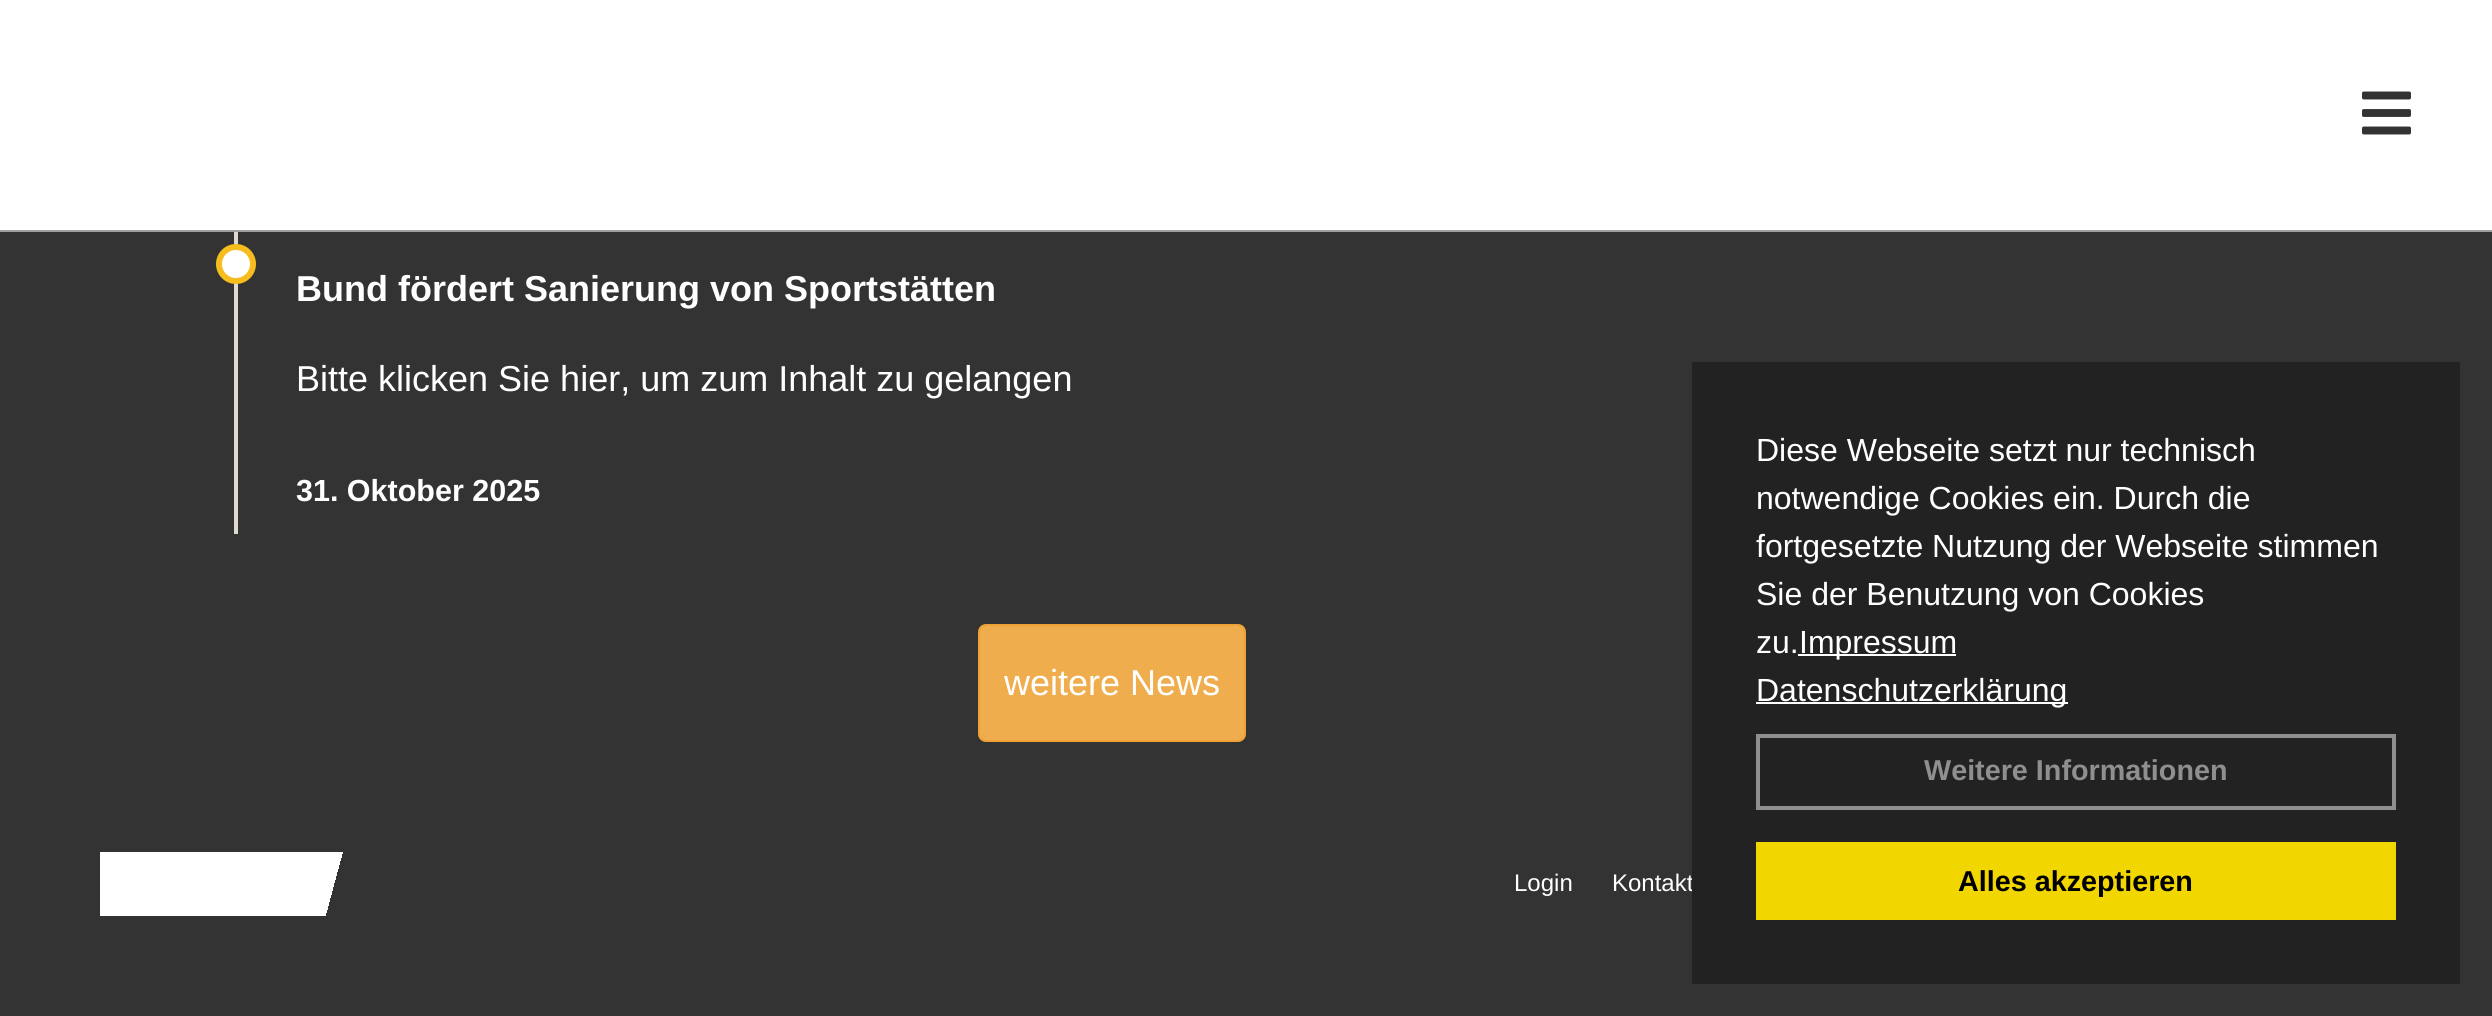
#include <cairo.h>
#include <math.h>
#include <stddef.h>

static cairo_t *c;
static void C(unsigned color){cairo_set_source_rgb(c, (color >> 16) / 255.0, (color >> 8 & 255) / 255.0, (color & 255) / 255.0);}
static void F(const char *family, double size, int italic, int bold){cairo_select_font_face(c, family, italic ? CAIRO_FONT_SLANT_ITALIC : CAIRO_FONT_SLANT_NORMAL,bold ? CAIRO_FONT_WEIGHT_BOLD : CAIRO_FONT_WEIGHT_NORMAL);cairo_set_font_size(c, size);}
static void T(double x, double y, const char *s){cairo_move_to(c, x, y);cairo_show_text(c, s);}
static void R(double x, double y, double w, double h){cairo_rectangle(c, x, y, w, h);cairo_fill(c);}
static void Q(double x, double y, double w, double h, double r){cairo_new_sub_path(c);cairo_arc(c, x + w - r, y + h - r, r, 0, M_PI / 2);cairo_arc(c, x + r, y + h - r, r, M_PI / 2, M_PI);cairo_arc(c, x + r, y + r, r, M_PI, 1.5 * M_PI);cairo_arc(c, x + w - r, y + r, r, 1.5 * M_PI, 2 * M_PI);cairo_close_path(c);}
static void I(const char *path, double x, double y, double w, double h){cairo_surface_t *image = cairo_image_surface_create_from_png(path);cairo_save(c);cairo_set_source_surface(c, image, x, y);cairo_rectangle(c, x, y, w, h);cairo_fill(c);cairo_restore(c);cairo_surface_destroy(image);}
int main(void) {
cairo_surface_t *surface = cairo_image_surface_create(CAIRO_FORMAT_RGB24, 2492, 1016);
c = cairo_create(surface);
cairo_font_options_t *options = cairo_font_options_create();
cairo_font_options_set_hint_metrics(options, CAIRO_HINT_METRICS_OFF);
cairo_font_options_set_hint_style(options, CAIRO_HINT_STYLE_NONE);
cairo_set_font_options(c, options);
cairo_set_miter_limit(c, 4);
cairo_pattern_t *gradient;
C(0x333333);
cairo_paint(c);
C(0xffffff);
R(0,0,2492,230);
C(0xa0a0a0);
R(0,230,2492,2);
I("1.png",2362,91,49,44);
C(0xdfd9d4);
R(234,232,4,302);
C(0xffffff);
cairo_arc(c,236,264,17,0,2 * M_PI);
cairo_fill_preserve(c);
C(0xf7bd1f);
cairo_set_line_width(c,6);
cairo_stroke(c);
F("Liberation Sans",36,0,1);
C(0xffffff);
T(296,301,"Bund fördert Sanierung von Sportstätten");
F("Liberation Sans",36,0,0);
T(296,391,"Bitte klicken Sie hier, um zum Inhalt zu gelangen");
F("Liberation Sans",30.5,0,1);
T(296,501,"31. Oktober 2025");
C(0xf0ad4e);
Q(979,625,266,116,7);
cairo_fill_preserve(c);
C(0xeea236);
cairo_set_line_width(c,2);
cairo_stroke(c);
F("Liberation Sans",36,0,0);
C(0xffffff);
T(1004,695,"weitere News");
gradient = cairo_pattern_create_linear(173,580,2439,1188);
cairo_pattern_add_color_stop_rgba(gradient,.1,1,1,1,1);
cairo_pattern_add_color_stop_rgba(gradient,.1,0.2,0.2,0.2,1);
cairo_set_source(c,gradient);
cairo_pattern_destroy(gradient);
R(100,852,243,64);
F("Liberation Sans",24,0,0);
C(0xffffff);
T(1514,891,"Login");
T(1612,891,"Kontakt");
C(0x222222);
R(1692,362,768,622);
F("Liberation Sans",32,0,0);
C(0xffffff);
T(1756,461,"Diese Webseite setzt nur technisch");
T(1756,509,"notwendige Cookies ein. Durch die");
T(1756,557,"fortgesetzte Nutzung der Webseite stimmen");
T(1756,605,"Sie der Benutzung von Cookies");
T(1756,653,"zu.");
R(1798,654,158,2);
T(1799,653,"Impressum");
R(1756,702,312,2);
T(1756,701,"Datenschutzerklärung");
cairo_rectangle(c,1758,736,636,72);
C(0x8f8f8f);
cairo_set_line_width(c,4);
cairo_stroke(c);
F("Liberation Sans",28.75,0,1);
T(1924,780,"Weitere Informationen");
C(0xf1d600);
R(1756,842,640,78);
C(0x000000);
T(1958,891,"Alles akzeptieren");
cairo_surface_write_to_png(surface, "o.png");
cairo_font_options_destroy(options);
cairo_destroy(c);
cairo_surface_destroy(surface);
return 0;
}
